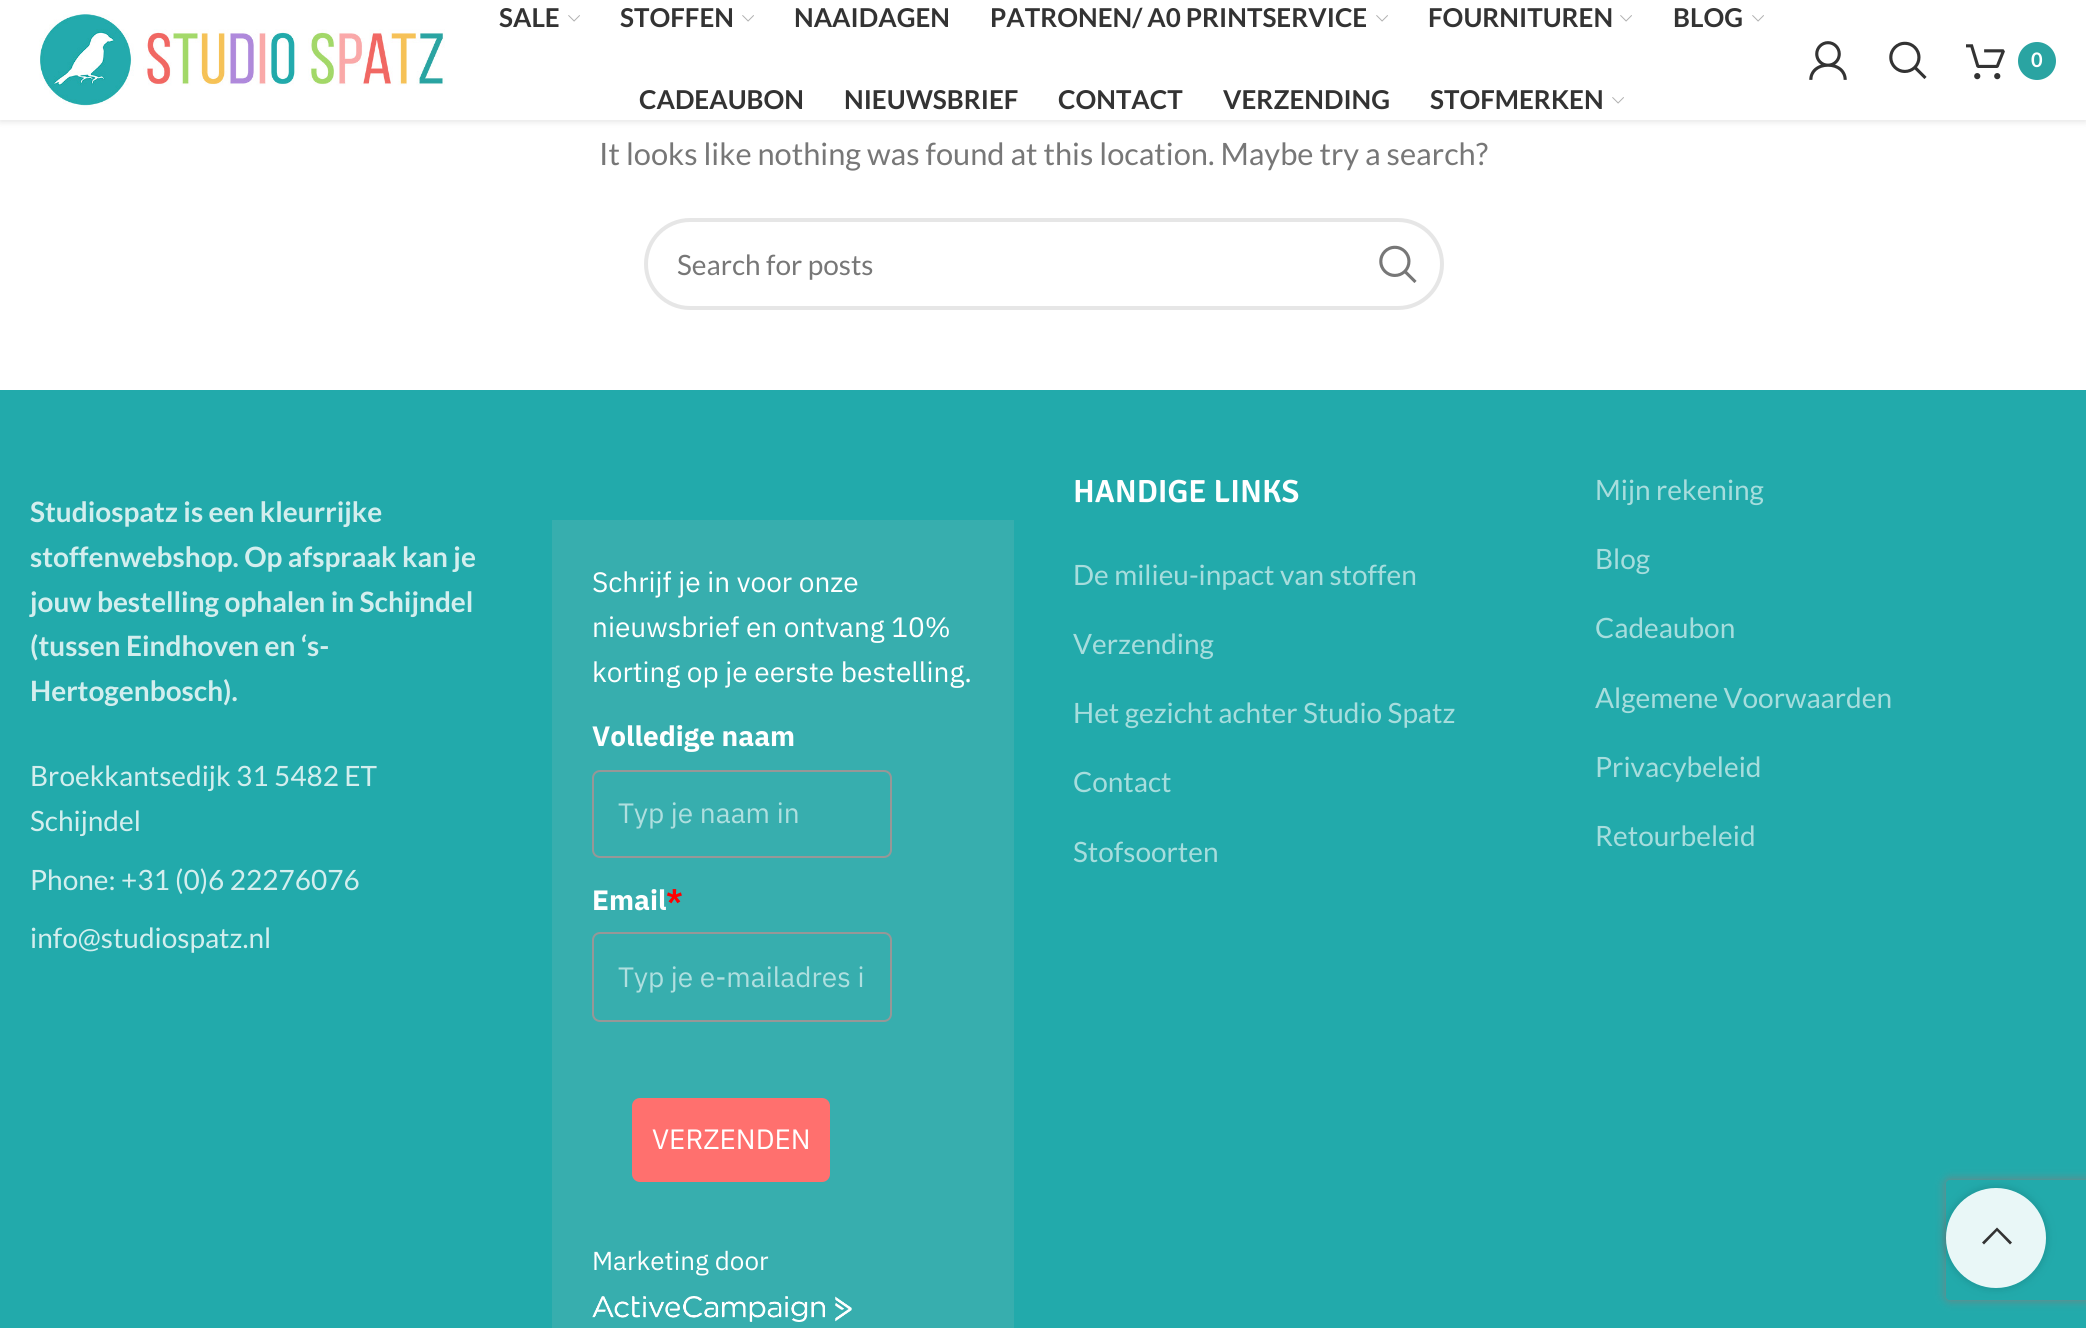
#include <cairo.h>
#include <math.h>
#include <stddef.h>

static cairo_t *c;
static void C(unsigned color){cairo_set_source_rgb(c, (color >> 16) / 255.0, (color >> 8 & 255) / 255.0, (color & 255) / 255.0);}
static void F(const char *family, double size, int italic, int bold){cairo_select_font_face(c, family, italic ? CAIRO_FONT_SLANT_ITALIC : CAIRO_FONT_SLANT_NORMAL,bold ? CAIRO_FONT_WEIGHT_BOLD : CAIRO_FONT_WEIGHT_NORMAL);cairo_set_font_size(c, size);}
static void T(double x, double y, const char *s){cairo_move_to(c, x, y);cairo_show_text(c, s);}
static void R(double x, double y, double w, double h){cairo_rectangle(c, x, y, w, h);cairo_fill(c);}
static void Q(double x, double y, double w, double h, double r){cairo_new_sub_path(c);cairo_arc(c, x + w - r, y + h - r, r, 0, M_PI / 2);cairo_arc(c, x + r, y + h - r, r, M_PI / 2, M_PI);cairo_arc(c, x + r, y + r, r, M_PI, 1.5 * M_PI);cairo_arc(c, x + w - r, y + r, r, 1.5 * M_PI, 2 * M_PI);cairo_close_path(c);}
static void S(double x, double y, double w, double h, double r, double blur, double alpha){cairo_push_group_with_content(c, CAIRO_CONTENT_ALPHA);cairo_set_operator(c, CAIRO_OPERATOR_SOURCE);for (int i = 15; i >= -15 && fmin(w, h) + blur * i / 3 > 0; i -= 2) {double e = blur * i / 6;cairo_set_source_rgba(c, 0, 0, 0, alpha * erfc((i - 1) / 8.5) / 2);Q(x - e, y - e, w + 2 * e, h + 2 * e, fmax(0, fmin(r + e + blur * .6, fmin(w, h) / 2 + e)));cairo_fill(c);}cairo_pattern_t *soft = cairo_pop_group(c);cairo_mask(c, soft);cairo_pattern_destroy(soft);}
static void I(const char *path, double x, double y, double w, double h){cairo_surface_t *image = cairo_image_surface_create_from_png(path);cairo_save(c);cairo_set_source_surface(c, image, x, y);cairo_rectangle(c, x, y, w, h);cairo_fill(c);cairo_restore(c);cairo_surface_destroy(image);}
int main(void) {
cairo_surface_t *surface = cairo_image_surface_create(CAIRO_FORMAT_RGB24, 2086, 1328);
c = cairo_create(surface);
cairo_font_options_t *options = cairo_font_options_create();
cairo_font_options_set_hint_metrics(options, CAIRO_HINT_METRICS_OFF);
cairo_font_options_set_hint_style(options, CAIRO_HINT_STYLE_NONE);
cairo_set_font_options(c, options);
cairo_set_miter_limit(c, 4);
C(0xffffff);
cairo_paint(c);
C(0x000000);
S(0,2,2086,120,0,3,.1);
C(0xffffff);
R(0,0,2086,120);
I("1.png",39,11,406,98);
F("Lato",26,0,1);
C(0x333333);
T(499,27,"SALE");
I("2.png",568,15,12,7);
T(620,27,"STOFFEN");
I("2.png",742,15,12,7);
T(794,27,"NAAIDAGEN");
T(990,27,"PATRONEN/ A0 PRINTSERVICE");
I("2.png",1376,15,12,7);
T(1428,27,"FOURNITUREN");
I("2.png",1620,15,12,7);
T(1673,27,"BLOG");
I("2.png",1752,15,12,7);
T(639,109,"CADEAUBON");
T(844,109,"NIEUWSBRIEF");
T(1058,109,"CONTACT");
T(1223,109,"VERZENDING");
T(1430,109,"STOFMERKEN");
I("2.png",1612,97,12,7);
I("3.png",1809,41,38,39);
I("4.png",1889,41,38,38);
I("5.png",1966,44,39,36);
C(0x2aa4a2);
cairo_arc(c,2037,61,19,0,2 * M_PI);
cairo_fill(c);
F("Lato",20,0,1);
C(0xffffff);
T(2031,67,"0");
F("Lato",30.8,0,0);
C(0x777777);
T(599,165,"It looks like nothing was found at this location. Maybe try a search?");
Q(646,220,796,88,44);
C(0xe6e6e6);
cairo_set_line_width(c,4);
cairo_stroke(c);
F("Lato",28,0,0);
C(0x777777);
T(677,275,"Search for posts");
I("6.png",1379,245,38,38);
C(0x22aaab);
R(0,390,2086,938);
F("Lato",28,0,1);
C(0xd3eeee);
T(30,522,"Studiospatz is een kleurrijke");
T(30,567,"stoffenwebshop. Op afspraak kan je");
T(30,612,"jouw bestelling ophalen in Schijndel");
T(30,656,"(tussen Eindhoven en ‘s-");
T(30,701,"Hertogenbosch).");
F("Lato",28,0,0);
T(30,786,"Broekkantsedijk 31 5482 ET");
T(30,831,"Schijndel");
T(30,890,"Phone: +31 (0)6 22276076");
T(30,948,"info@studiospatz.nl");
C(0x37aeae);
R(552,520,462,808);
F("IBM Plex Sans",28,0,0);
C(0xffffff);
T(592,592,"Schrijf je in voor onze");
T(592,637,"nieuwsbrief en ontvang 10%");
T(592,682,"korting op je eerste bestelling.");
F("IBM Plex Sans",28,0,1);
T(592,746,"Volledige naam");
Q(593,771,298,86,7);
C(0x979797);
cairo_set_line_width(c,2);
cairo_stroke(c);
F("IBM Plex Sans",28,0,0);
C(0xafdfdf);
T(618,823,"Typ je naam in");
F("IBM Plex Sans",28,0,1);
C(0xffffff);
T(592,910,"Email");
C(0xff0000);
T(666,910,"*");
Q(593,933,298,88,7);
C(0x979797);
cairo_stroke(c);
F("IBM Plex Sans",28,0,0);
C(0xafdfdf);
T(618,987,"Typ je e-mailadres i");
C(0xff706e);
Q(632,1098,198,84,8);
cairo_fill(c);
C(0xffffff);
T(652,1149,"VERZENDEN");
F("IBM Plex Sans",26,0,0);
T(592,1270,"Marketing door");
I("7.png",592,1296,260,26);
F("Signika SemiBold",32,0,0);
T(1073,502,"HANDIGE LINKS");
F("Lato",28,0,0);
C(0xa7dddd);
T(1073,585,"De milieu-inpact van stoffen");
T(1073,654,"Verzending");
T(1073,723,"Het gezicht achter Studio Spatz");
T(1073,792,"Contact");
T(1073,862,"Stofsoorten");
T(1595,500,"Mijn rekening");
T(1595,569,"Blog");
T(1595,638,"Cadeaubon");
T(1595,708,"Algemene Voorwaarden");
T(1595,777,"Privacybeleid");
T(1595,846,"Retourbeleid");
cairo_save(c);
cairo_set_fill_rule(c,CAIRO_FILL_RULE_EVEN_ODD);
cairo_new_path(c);
cairo_move_to(c,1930,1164);
cairo_line_to(c,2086,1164);
cairo_line_to(c,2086,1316);
cairo_line_to(c,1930,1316);
cairo_close_path(c);
cairo_move_to(c,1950,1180);
cairo_line_to(c,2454,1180);
cairo_curve_to(c,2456,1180,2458,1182,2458,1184);
cairo_line_to(c,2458,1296);
cairo_curve_to(c,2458,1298,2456,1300,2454,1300);
cairo_line_to(c,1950,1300);
cairo_curve_to(c,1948,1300,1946,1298,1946,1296);
cairo_line_to(c,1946,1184);
cairo_curve_to(c,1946,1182,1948,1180,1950,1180);
cairo_close_path(c);
cairo_clip(c);
C(0x808080);
S(1946,1180,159,120,4,5,1);
cairo_restore(c);
cairo_save(c);
cairo_set_fill_rule(c,CAIRO_FILL_RULE_EVEN_ODD);
cairo_new_path(c);
cairo_move_to(c,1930,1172);
cairo_line_to(c,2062,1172);
cairo_line_to(c,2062,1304);
cairo_line_to(c,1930,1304);
cairo_close_path(c);
cairo_move_to(c,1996,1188);
cairo_curve_to(c,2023.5,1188,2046,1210.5,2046,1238);
cairo_curve_to(c,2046,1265.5,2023.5,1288,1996,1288);
cairo_curve_to(c,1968.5,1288,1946,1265.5,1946,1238);
cairo_curve_to(c,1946,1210.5,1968.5,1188,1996,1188);
cairo_close_path(c);
cairo_clip(c);
C(0x000000);
S(1946,1188,100,100,50,5,.17);
cairo_restore(c);
cairo_set_source_rgba(c,1,1,1,0.9);
cairo_arc(c,1996,1238,50,0,2 * M_PI);
cairo_fill(c);
C(0x333333);
cairo_new_path(c);
cairo_move_to(c,2010,1244.5);
cairo_line_to(c,2012,1242.5);
cairo_line_to(c,1997,1227.5);
cairo_line_to(c,1982,1242.5);
cairo_line_to(c,1984,1244.5);
cairo_line_to(c,1997,1231);
cairo_close_path(c);
cairo_fill(c);
cairo_surface_write_to_png(surface, "o.png");
cairo_font_options_destroy(options);
cairo_destroy(c);
cairo_surface_destroy(surface);
return 0;
}
